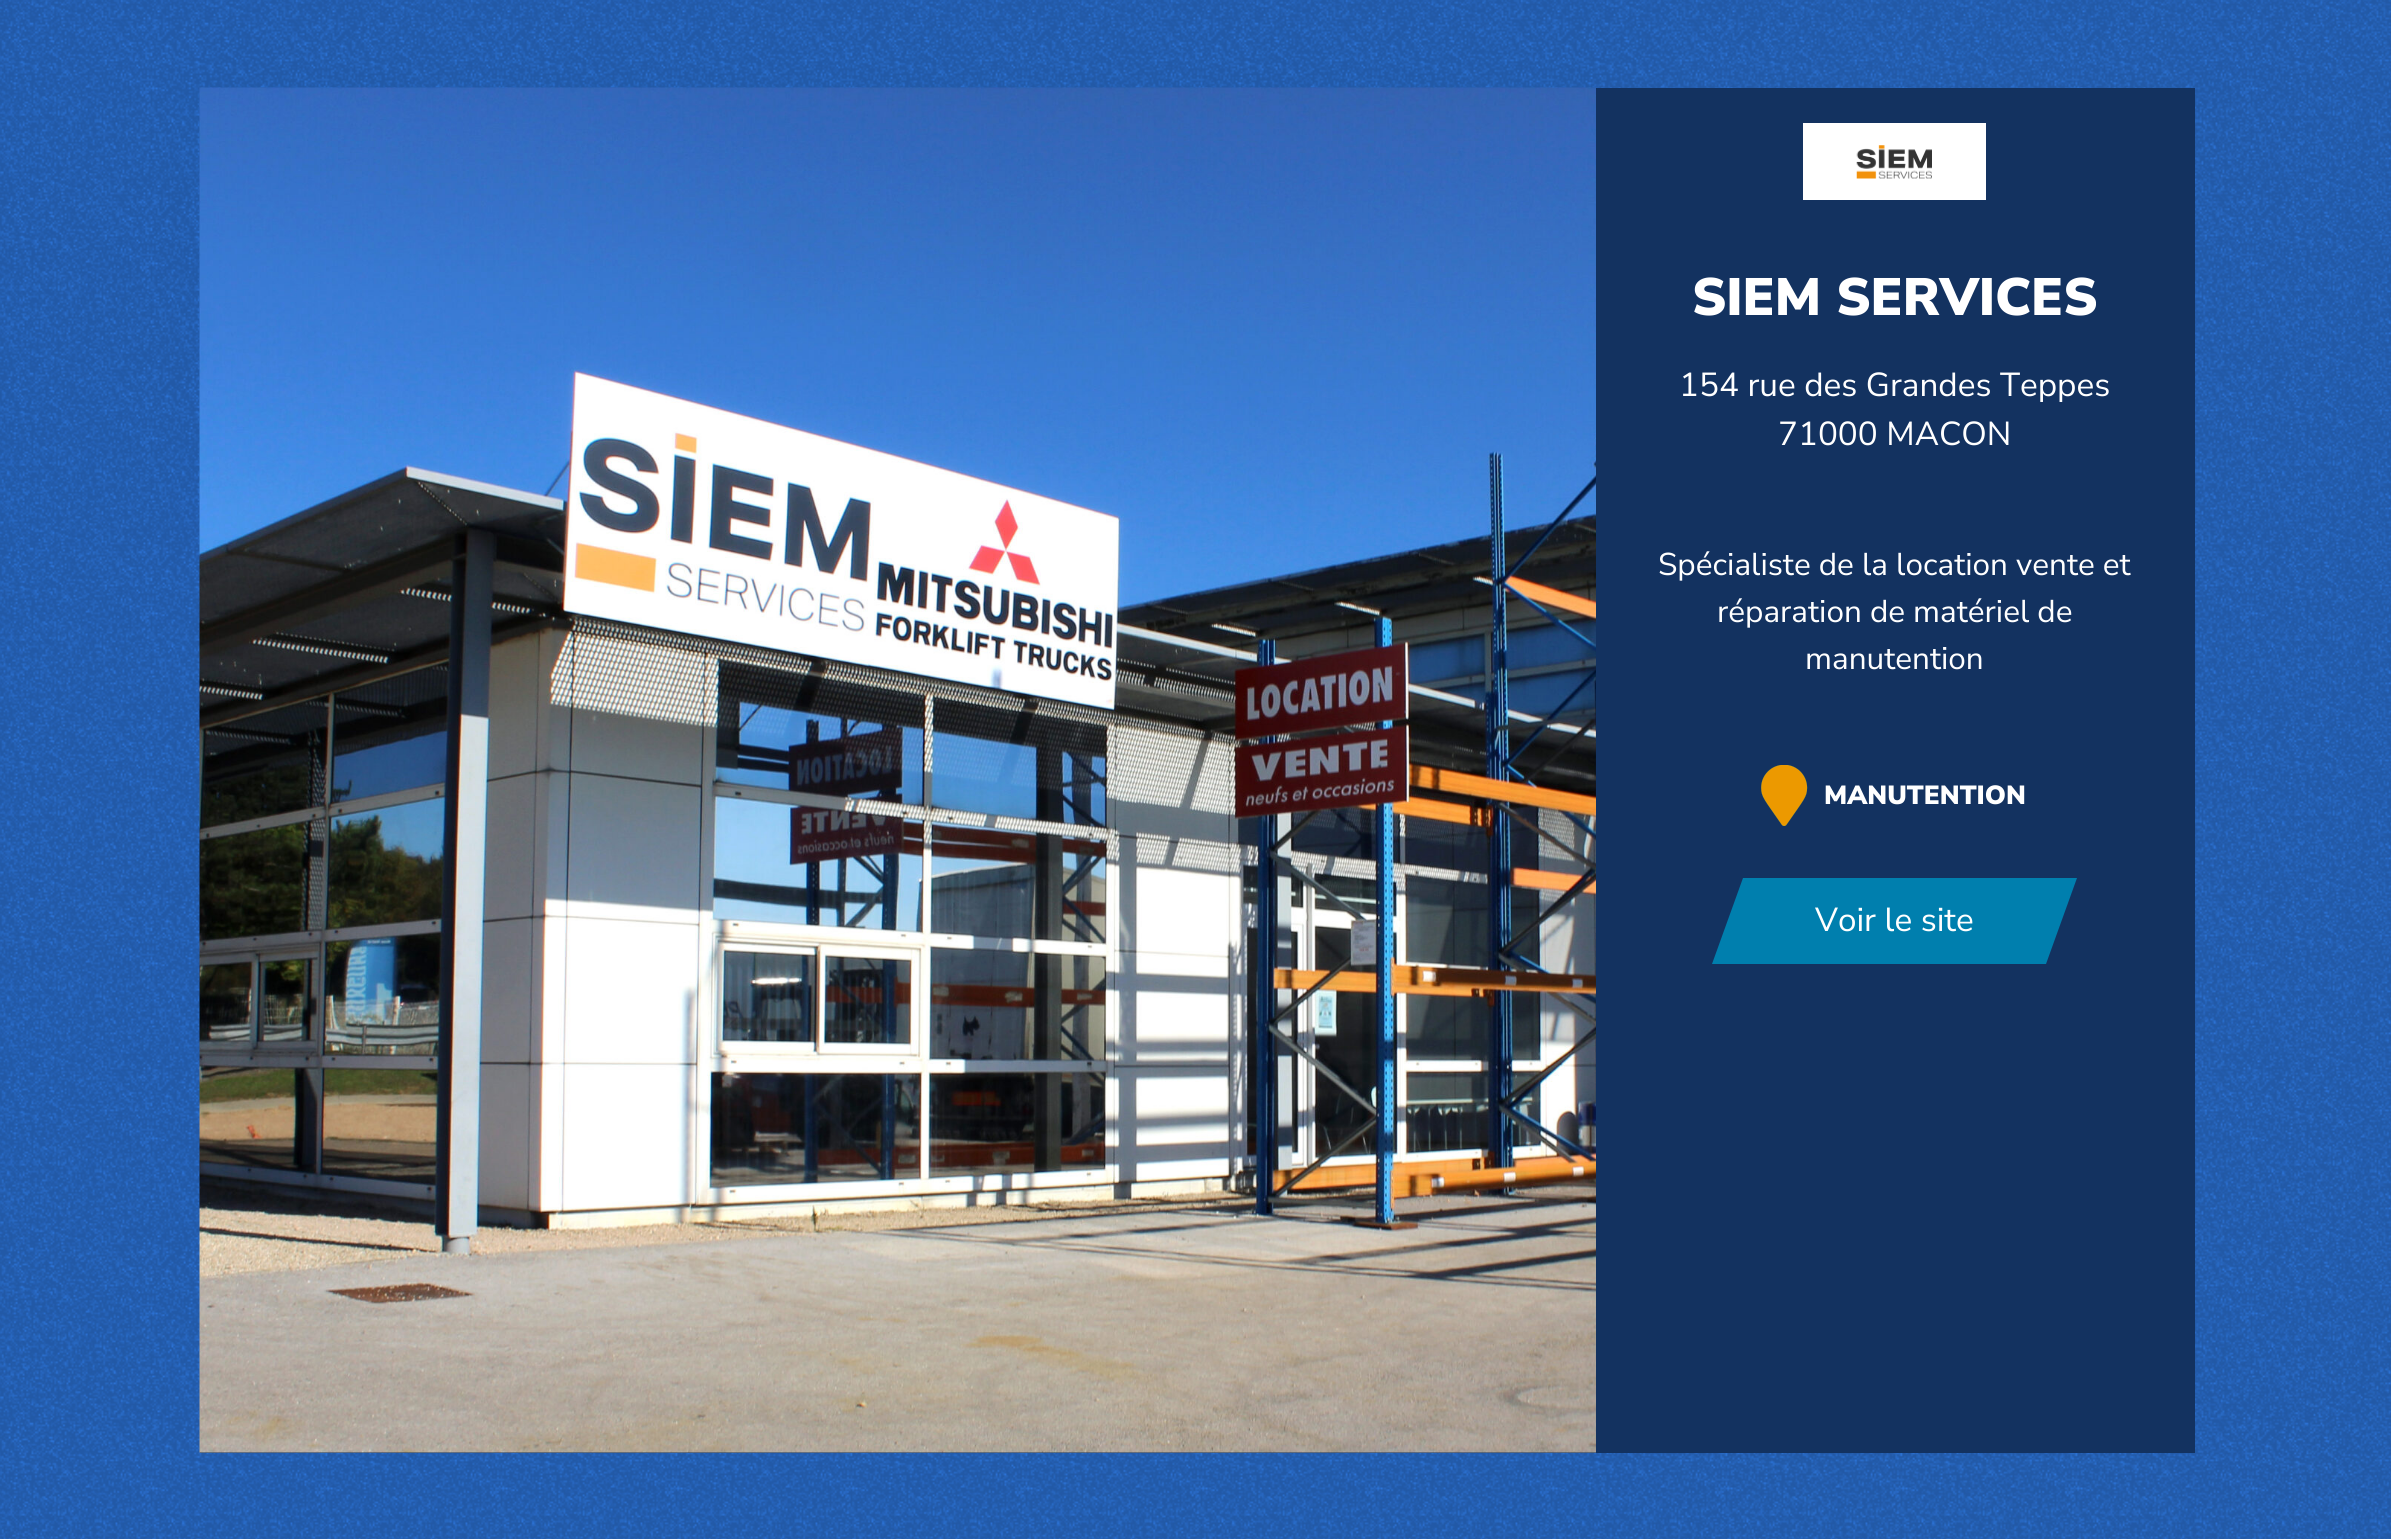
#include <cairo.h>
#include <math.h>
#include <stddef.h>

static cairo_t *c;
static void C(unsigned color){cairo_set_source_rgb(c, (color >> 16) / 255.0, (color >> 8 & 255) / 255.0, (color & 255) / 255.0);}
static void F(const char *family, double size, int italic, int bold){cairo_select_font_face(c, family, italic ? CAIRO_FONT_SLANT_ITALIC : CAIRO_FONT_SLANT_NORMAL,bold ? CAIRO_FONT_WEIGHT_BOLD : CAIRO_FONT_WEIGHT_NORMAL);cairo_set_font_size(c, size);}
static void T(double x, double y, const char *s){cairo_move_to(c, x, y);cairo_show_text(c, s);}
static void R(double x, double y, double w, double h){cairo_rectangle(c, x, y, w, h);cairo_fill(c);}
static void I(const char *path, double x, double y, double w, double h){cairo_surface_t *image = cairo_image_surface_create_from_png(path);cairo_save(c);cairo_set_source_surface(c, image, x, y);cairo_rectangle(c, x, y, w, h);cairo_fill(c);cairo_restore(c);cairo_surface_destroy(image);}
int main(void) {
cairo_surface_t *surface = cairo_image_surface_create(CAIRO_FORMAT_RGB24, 2391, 1539);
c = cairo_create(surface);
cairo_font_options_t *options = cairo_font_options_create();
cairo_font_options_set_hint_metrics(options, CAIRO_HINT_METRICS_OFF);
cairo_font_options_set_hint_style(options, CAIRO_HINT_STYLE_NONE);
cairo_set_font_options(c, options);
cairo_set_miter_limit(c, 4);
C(0x2d75da);
cairo_paint(c);
I("1.png",0,0,2391,1539);
C(0x133260);
R(200,1452,1396,1);
I("2.png",199,87,1397,1366);
R(1596,88,599,1365);
C(0xffffff);
R(1803,123,183,77);
I("3.png",1856,145,76,34);
F("Nunito Sans Black",52.5,0,0);
T(1692,315,"SIEM SERVICES");
F("Nunito Sans",33.25,0,0);
T(1679,396,"154 rue des Grandes Teppes");
T(1778,445,"71000 MACON");
F("Nunito Sans",31.5,0,0);
T(1658,575,"Spécialiste de la location vente et");
T(1717,622,"réparation de matériel de");
T(1805,669,"manutention");
I("4.png",1761,765,47,61);
F("Nunito Sans Black",26.25,0,0);
T(1824,804,"MANUTENTION");
C(0x007fae);
cairo_new_path(c);
cairo_move_to(c,1743,878);
cairo_line_to(c,2077,878);
cairo_line_to(c,2046,964);
cairo_line_to(c,1712,964);
cairo_close_path(c);
cairo_fill(c);
F("Nunito Sans",33.25,0,0);
C(0xffffff);
T(1815,931,"Voir le site");
cairo_surface_write_to_png(surface, "o.png");
cairo_font_options_destroy(options);
cairo_destroy(c);
cairo_surface_destroy(surface);
return 0;
}
